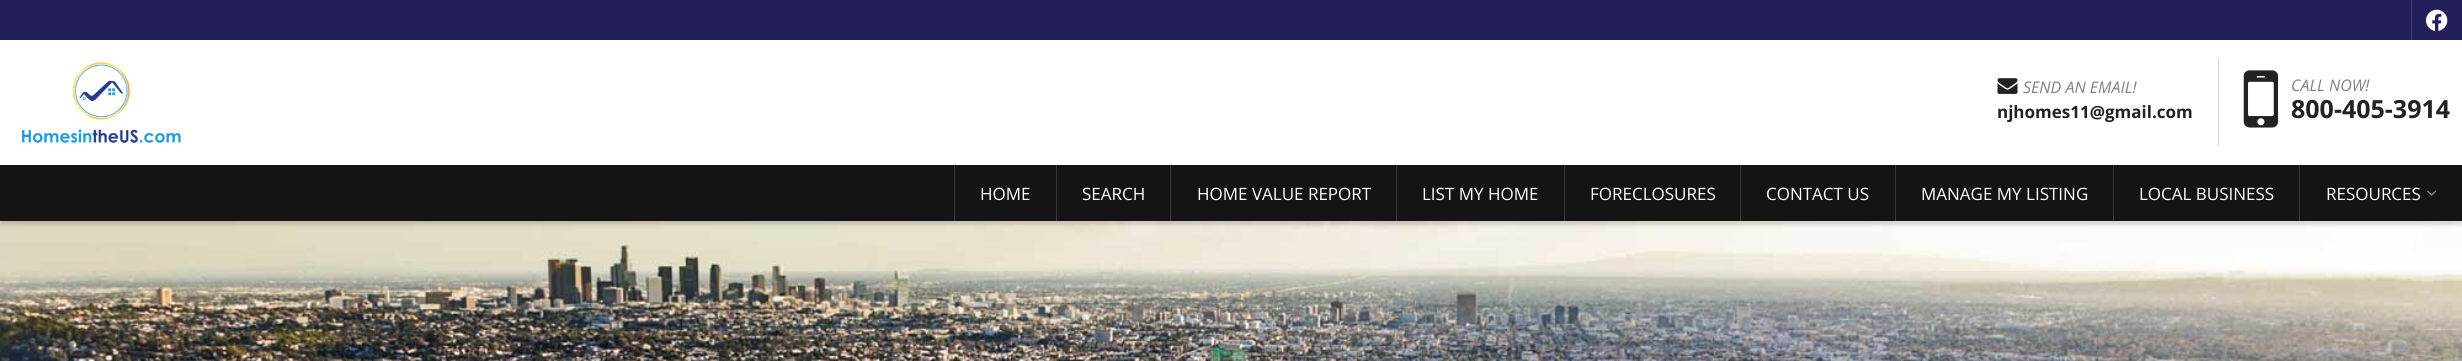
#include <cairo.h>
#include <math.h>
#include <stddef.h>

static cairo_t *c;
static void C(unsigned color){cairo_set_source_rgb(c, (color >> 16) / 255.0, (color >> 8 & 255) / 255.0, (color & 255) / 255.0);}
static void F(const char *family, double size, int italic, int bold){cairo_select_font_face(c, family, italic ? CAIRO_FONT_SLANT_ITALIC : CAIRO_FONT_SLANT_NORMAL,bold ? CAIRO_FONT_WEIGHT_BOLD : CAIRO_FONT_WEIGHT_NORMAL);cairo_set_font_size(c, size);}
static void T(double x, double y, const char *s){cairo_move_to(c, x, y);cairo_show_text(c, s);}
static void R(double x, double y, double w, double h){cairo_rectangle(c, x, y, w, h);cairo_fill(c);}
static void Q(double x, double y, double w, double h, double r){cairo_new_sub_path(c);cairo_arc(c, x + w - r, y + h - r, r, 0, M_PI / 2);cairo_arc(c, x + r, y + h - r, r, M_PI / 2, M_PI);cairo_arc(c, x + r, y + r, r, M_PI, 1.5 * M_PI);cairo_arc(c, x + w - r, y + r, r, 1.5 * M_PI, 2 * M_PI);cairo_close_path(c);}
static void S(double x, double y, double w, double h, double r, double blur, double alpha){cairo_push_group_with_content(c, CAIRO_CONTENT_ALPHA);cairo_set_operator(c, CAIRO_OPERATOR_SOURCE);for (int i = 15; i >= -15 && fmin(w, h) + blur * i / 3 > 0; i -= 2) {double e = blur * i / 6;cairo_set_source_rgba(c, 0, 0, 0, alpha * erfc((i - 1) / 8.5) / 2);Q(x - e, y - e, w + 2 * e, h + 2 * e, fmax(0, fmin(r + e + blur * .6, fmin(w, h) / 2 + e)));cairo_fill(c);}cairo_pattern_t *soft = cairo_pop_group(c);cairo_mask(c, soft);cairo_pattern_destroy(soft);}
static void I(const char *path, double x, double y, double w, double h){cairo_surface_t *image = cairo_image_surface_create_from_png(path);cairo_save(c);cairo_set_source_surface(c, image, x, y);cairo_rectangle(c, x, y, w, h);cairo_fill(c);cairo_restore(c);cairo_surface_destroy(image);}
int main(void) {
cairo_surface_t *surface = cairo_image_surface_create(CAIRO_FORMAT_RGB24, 2462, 361);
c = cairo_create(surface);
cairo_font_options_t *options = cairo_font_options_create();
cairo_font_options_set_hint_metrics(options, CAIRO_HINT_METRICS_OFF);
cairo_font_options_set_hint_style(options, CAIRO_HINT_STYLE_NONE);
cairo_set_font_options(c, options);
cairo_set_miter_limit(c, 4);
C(0xffffff);
cairo_paint(c);
C(0x231f5b);
R(0,0,2462,40);
C(0x444174);
R(2411,0,1,40);
F("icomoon",22,0,0);
C(0xffffff);
T(2426,30,"f");
I("1.png",21,62,160,81);
C(0xd9d9d9);
R(2218,59,1,87);
I("2.png",1997,78,21,16);
F("Open Sans",16,1,0);
C(0x808080);
T(2023,93,"SEND AN EMAIL!");
F("Open Sans",17,0,1);
C(0x222222);
T(1997,118,"njhomes11@gmail.com");
I("3.png",2243,70,36,58);
F("Open Sans",16,1,0);
C(0x808080);
T(2291,91,"CALL NOW!");
F("Open Sans",25,0,1);
C(0x222222);
T(2291,118,"800-405-3914");
I("5.png",0,221,2462,140);
C(0x000000);
S(0,169,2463,56,0,2,.15);
C(0x141414);
R(0,165,2462,56);
C(0x373737);
R(954,165,1,56);
F("Open Sans",17,0,0);
C(0xffffff);
T(980,200,"HOME");
C(0x373737);
R(1056,165,1,56);
C(0xffffff);
T(1082,200,"SEARCH");
C(0x373737);
R(1170,165,1,56);
C(0xffffff);
T(1197,200,"HOME VALUE REPORT");
C(0x373737);
R(1396,165,1,56);
C(0xffffff);
T(1422,200,"LIST MY HOME");
C(0x373737);
R(1564,165,1,56);
C(0xffffff);
T(1590,200,"FORECLOSURES");
C(0x373737);
R(1740,165,1,56);
C(0xffffff);
T(1766,200,"CONTACT US");
C(0x373737);
R(1895,165,1,56);
C(0xffffff);
T(1921,200,"MANAGE MY LISTING");
C(0x373737);
R(2113,165,1,56);
C(0xffffff);
T(2139,200,"LOCAL BUSINESS");
C(0x373737);
R(2299,165,1,56);
C(0xffffff);
T(2326,200,"RESOURCES");
I("4.png",2427,190,10,6);
cairo_surface_write_to_png(surface, "o.png");
cairo_font_options_destroy(options);
cairo_destroy(c);
cairo_surface_destroy(surface);
return 0;
}
